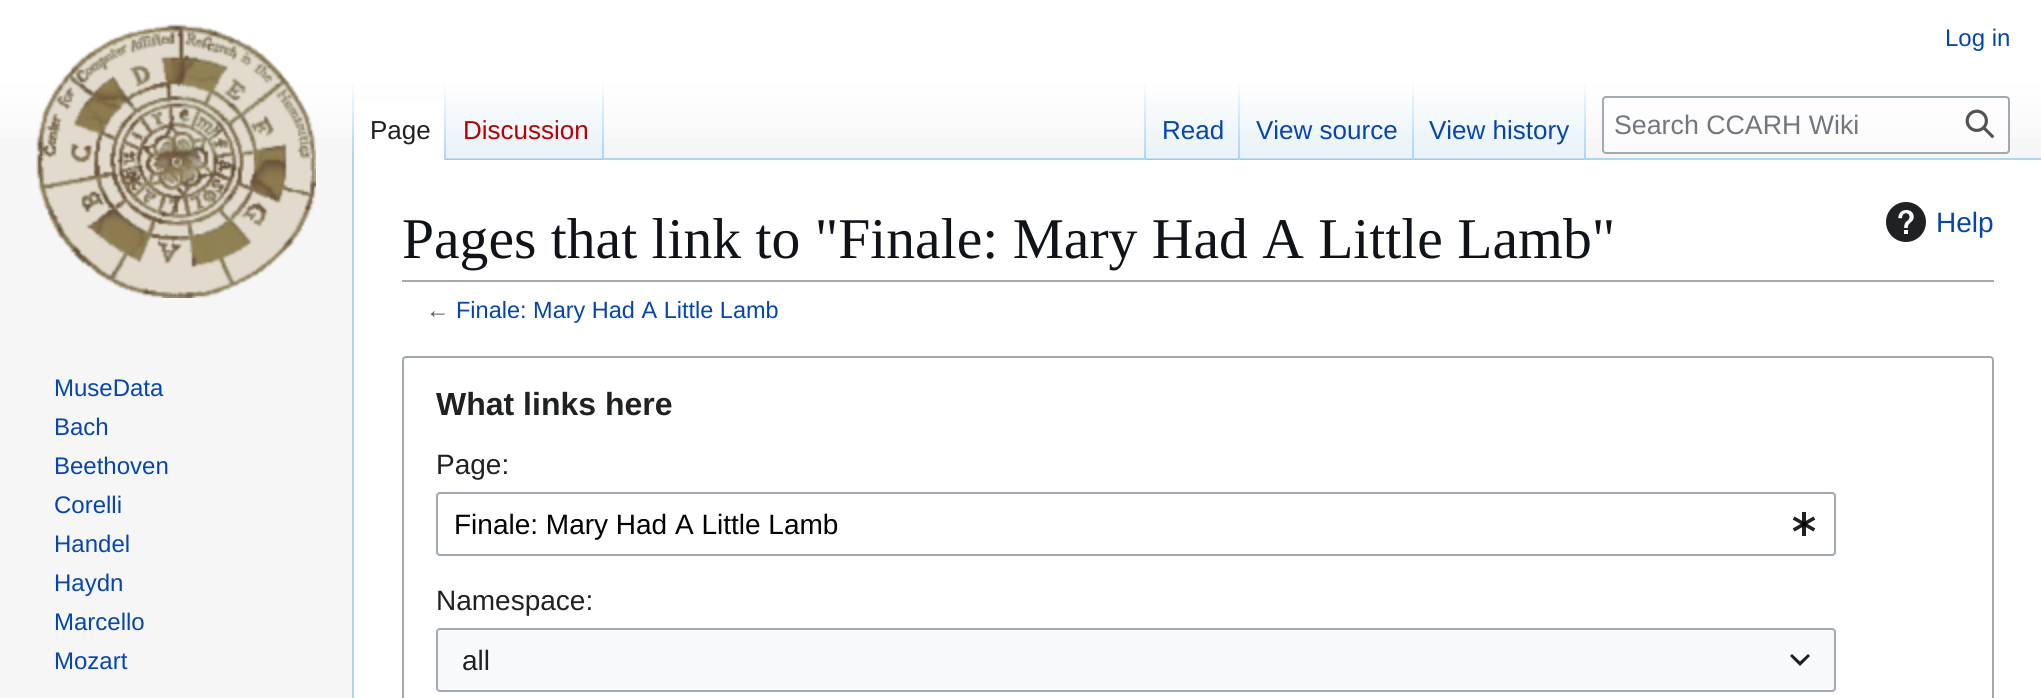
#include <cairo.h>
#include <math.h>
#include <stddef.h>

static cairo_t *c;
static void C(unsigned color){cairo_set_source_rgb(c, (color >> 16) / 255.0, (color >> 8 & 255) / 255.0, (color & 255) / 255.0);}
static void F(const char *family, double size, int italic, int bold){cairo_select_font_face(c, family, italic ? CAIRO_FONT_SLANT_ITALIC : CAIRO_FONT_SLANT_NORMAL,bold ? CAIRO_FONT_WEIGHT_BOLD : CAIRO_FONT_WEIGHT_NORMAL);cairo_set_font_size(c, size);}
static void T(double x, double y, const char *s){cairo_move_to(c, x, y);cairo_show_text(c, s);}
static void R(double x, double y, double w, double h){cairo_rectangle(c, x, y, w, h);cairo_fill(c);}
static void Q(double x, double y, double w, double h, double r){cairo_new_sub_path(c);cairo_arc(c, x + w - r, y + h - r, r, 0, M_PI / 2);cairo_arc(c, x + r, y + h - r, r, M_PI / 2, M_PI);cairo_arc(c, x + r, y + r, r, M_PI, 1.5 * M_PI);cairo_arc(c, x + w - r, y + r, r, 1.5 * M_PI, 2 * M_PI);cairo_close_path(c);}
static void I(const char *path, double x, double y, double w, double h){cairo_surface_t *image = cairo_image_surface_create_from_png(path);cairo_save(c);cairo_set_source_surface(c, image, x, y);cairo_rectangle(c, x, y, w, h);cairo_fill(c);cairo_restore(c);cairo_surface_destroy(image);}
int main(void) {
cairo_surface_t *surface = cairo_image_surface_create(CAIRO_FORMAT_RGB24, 2041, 698);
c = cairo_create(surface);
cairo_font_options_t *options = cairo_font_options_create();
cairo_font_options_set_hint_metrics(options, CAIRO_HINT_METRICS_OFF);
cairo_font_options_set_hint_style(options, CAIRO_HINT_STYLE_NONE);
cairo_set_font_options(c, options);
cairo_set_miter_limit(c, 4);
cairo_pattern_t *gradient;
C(0xf6f6f6);
cairo_paint(c);
gradient = cairo_pattern_create_linear(1021,0,1021,160);
cairo_pattern_add_color_stop_rgba(gradient,.5,1,1,1,1);
cairo_pattern_add_color_stop_rgba(gradient,1,0.965,0.965,0.965,1);
cairo_set_source(c,gradient);
cairo_pattern_destroy(gradient);
R(0,0,2041,138);
F("Liberation Sans",24,0,0);
C(0x0645ad);
T(1945,46,"Log in");
C(0xa7d7f9);
R(352,158,2,540);
gradient = cairo_pattern_create_linear(353,80,353,160);
cairo_pattern_add_color_stop_rgba(gradient,0,0.655,0.843,0.976,0);
cairo_pattern_add_color_stop_rgba(gradient,1,0.655,0.843,0.976,1);
cairo_set_source(c,gradient);
cairo_pattern_destroy(gradient);
R(352,80,2,80);
C(0xffffff);
R(354,102,90,58);
gradient = cairo_pattern_create_linear(445,80,445,160);
cairo_pattern_add_color_stop_rgba(gradient,0,1,1,1,1);
cairo_pattern_add_color_stop_rgba(gradient,1,0.655,0.843,0.976,1);
cairo_set_source(c,gradient);
cairo_pattern_destroy(gradient);
R(444,80,2,80);
F("Liberation Sans",26,0,0);
C(0x202122);
T(370,139,"Page");
gradient = cairo_pattern_create_linear(525,160,525,80);
cairo_pattern_add_color_stop_rgba(gradient,0,0.467,0.757,0.965,1);
cairo_pattern_add_color_stop_rgba(gradient,.03,0.91,0.949,0.973,1);
cairo_pattern_add_color_stop_rgba(gradient,1,1,1,1,1);
cairo_set_source(c,gradient);
cairo_pattern_destroy(gradient);
R(446,92,158,68);
gradient = cairo_pattern_create_linear(603,80,603,160);
cairo_pattern_add_color_stop_rgba(gradient,0,0.655,0.843,0.976,0);
cairo_pattern_add_color_stop_rgba(gradient,1,0.655,0.843,0.976,1);
cairo_set_source(c,gradient);
cairo_pattern_destroy(gradient);
R(602,80,2,80);
C(0xba0000);
T(463,139,"Discussion");
C(0xa7d7f9);
R(604,158,1437,2);
gradient = cairo_pattern_create_linear(1145,80,1145,160);
cairo_pattern_add_color_stop_rgba(gradient,0,0.655,0.843,0.976,0);
cairo_pattern_add_color_stop_rgba(gradient,1,0.655,0.843,0.976,1);
cairo_set_source(c,gradient);
cairo_pattern_destroy(gradient);
R(1144,80,2,80);
gradient = cairo_pattern_create_linear(1193,160,1193,80);
cairo_pattern_add_color_stop_rgba(gradient,0,0.467,0.757,0.965,1);
cairo_pattern_add_color_stop_rgba(gradient,.03,0.91,0.949,0.973,1);
cairo_pattern_add_color_stop_rgba(gradient,1,1,1,1,1);
cairo_set_source(c,gradient);
cairo_pattern_destroy(gradient);
R(1146,92,94,68);
gradient = cairo_pattern_create_linear(1239,80,1239,160);
cairo_pattern_add_color_stop_rgba(gradient,0,0.655,0.843,0.976,0);
cairo_pattern_add_color_stop_rgba(gradient,1,0.655,0.843,0.976,1);
cairo_set_source(c,gradient);
cairo_pattern_destroy(gradient);
R(1238,80,2,80);
C(0x0645ad);
T(1162,139,"Read");
gradient = cairo_pattern_create_linear(1327,160,1327,80);
cairo_pattern_add_color_stop_rgba(gradient,0,0.467,0.757,0.965,1);
cairo_pattern_add_color_stop_rgba(gradient,.03,0.91,0.949,0.973,1);
cairo_pattern_add_color_stop_rgba(gradient,1,1,1,1,1);
cairo_set_source(c,gradient);
cairo_pattern_destroy(gradient);
R(1240,92,174,68);
gradient = cairo_pattern_create_linear(1413,80,1413,160);
cairo_pattern_add_color_stop_rgba(gradient,0,0.655,0.843,0.976,0);
cairo_pattern_add_color_stop_rgba(gradient,1,0.655,0.843,0.976,1);
cairo_set_source(c,gradient);
cairo_pattern_destroy(gradient);
R(1412,80,2,80);
C(0x0645ad);
T(1256,139,"View source");
gradient = cairo_pattern_create_linear(1500,160,1500,80);
cairo_pattern_add_color_stop_rgba(gradient,0,0.467,0.757,0.965,1);
cairo_pattern_add_color_stop_rgba(gradient,.03,0.91,0.949,0.973,1);
cairo_pattern_add_color_stop_rgba(gradient,1,1,1,1,1);
cairo_set_source(c,gradient);
cairo_pattern_destroy(gradient);
R(1414,92,172,68);
gradient = cairo_pattern_create_linear(1585,80,1585,160);
cairo_pattern_add_color_stop_rgba(gradient,0,0.655,0.843,0.976,0);
cairo_pattern_add_color_stop_rgba(gradient,1,0.655,0.843,0.976,1);
cairo_set_source(c,gradient);
cairo_pattern_destroy(gradient);
R(1584,80,2,80);
C(0x0645ad);
T(1429,139,"View history");
cairo_set_source_rgba(c,1,1,1,0.5);
Q(1603,97,406,56,3);
cairo_fill_preserve(c);
C(0xa2a9b1);
cairo_stroke(c);
F("Liberation Sans",26.75,0,0);
C(0x72777d);
T(1614,134,"Search CCARH Wiki");
I("1.png",1965,109,30,30);
I("2.png",36,24,280,274);
F("Liberation Sans",24,0,0);
C(0x0645ad);
T(54,396,"MuseData");
T(54,435,"Bach");
T(54,474,"Beethoven");
T(54,513,"Corelli");
T(54,552,"Handel");
T(54,591,"Haydn");
T(54,630,"Marcello");
T(54,669,"Mozart");
C(0xffffff);
R(354,160,1687,538);
C(0xa2a9b1);
R(402,280,1592,2);
F("Liberation Serif",57.6,0,0);
C(0x101418);
T(402,258,"Pages that link to \"Finale: Mary Had A Little Lamb\"");
I("3.png",1886,202,40,40);
F("Liberation Sans",28,0,0);
C(0x0645ad);
T(1936,232,"Help");
F("Liberation Sans",23.5,0,0);
C(0x54595d);
T(426,318,"←");
C(0x0645ad);
T(456,318,"Finale: Mary Had A Little Lamb");
Q(403,357,1590,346,3);
C(0xa2a9b1);
cairo_stroke(c);
F("Liberation Sans",32,0,1);
C(0x202122);
T(436,415,"What links here");
F("Liberation Sans",28,0,0);
T(436,474,"Page:");
Q(437,493,1398,62,3);
C(0xa2a9b1);
cairo_stroke(c);
C(0x000000);
T(454,534,"Finale: Mary Had A Little Lamb");
I("4.png",1792,512,24,24);
C(0x202122);
T(436,610,"Namespace:");
C(0xf8f9fa);
R(436,628,1400,64);
Q(437,629,1398,62,3);
C(0xa2a9b1);
cairo_stroke(c);
C(0x202122);
T(462,670,"all");
C(0x202021);
cairo_new_path(c);
cairo_move_to(c,1808,654);
cairo_line_to(c,1800,661.5);
cairo_line_to(c,1792,654);
cairo_line_to(c,1790,656);
cairo_line_to(c,1800,666);
cairo_line_to(c,1810,656);
cairo_close_path(c);
cairo_fill(c);
cairo_surface_write_to_png(surface, "o.png");
cairo_font_options_destroy(options);
cairo_destroy(c);
cairo_surface_destroy(surface);
return 0;
}
